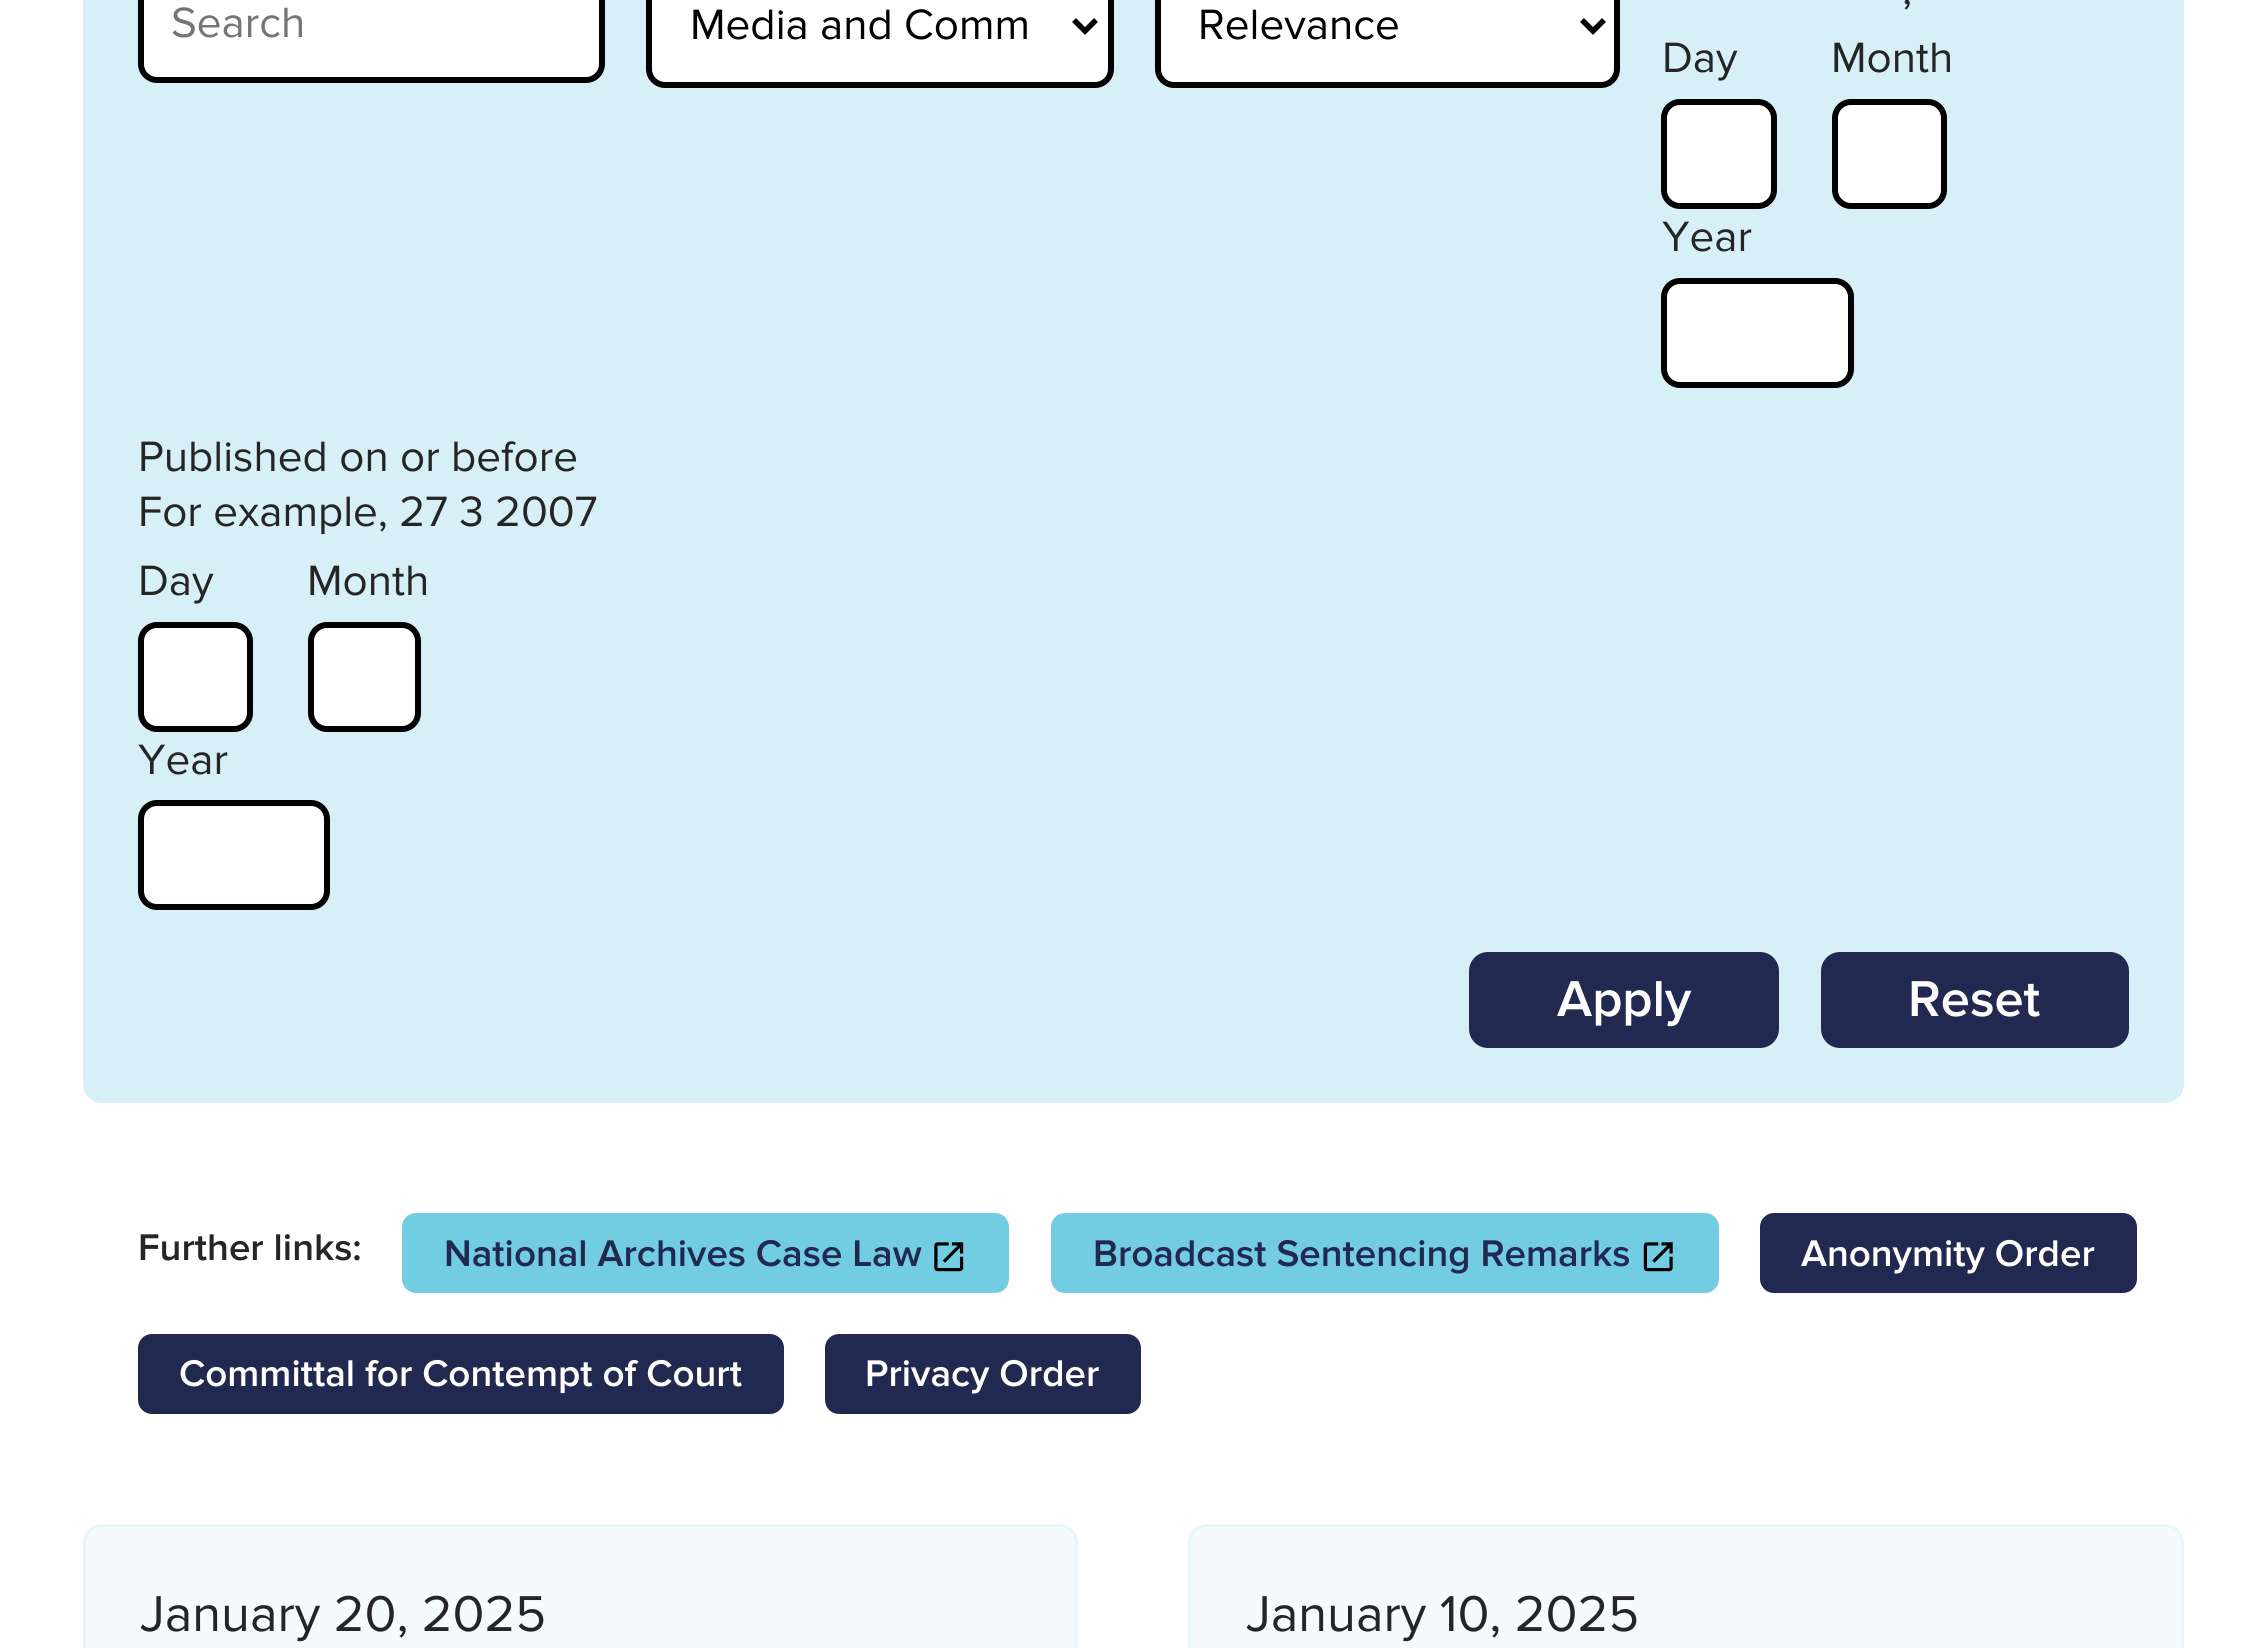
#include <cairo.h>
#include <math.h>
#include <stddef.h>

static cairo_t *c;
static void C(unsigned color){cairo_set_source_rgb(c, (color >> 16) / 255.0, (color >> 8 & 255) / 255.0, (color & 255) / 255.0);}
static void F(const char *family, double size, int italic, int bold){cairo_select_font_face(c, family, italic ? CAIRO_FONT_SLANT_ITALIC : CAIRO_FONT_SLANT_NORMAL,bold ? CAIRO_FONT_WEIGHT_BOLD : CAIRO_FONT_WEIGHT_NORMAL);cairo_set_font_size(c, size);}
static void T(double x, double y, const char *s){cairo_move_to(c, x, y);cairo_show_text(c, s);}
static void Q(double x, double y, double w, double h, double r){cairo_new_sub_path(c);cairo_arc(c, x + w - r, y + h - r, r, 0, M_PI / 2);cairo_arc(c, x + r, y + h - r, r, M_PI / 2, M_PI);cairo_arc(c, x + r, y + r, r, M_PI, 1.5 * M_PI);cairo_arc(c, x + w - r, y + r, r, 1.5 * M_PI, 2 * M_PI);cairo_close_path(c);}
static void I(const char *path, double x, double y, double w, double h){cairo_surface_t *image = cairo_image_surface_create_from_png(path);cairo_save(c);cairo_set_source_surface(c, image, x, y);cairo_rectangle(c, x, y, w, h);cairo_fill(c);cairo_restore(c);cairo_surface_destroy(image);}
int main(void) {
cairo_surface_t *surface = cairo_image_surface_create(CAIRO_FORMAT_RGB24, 2265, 1648);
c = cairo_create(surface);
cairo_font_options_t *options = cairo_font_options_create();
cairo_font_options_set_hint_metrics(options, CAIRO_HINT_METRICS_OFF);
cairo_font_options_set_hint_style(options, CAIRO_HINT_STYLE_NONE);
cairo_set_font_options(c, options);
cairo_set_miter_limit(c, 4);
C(0xffffff);
cairo_paint(c);
C(0xd7f0f7);
cairo_new_path(c);
cairo_move_to(c,83,-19);
cairo_line_to(c,2184,-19);
cairo_line_to(c,2184,1084);
cairo_curve_to(c,2184,1094.5,2175.5,1103,2165,1103);
cairo_line_to(c,102,1103);
cairo_curve_to(c,91.5,1103,83,1094.5,83,1084);
cairo_close_path(c);
cairo_fill(c);
C(0xffffff);
Q(141,-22,461,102,16);
cairo_fill_preserve(c);
C(0x000000);
cairo_set_line_width(c,6);
cairo_stroke(c);
F("Proxima Nova",44,0,0);
C(0x757575);
T(171,37,"Search");
C(0xffffff);
Q(649,-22,462,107,16);
cairo_fill_preserve(c);
C(0x000000);
cairo_stroke(c);
cairo_new_path(c);
cairo_move_to(c,1074,20);
cairo_line_to(c,1085,31);
cairo_line_to(c,1096,20);
cairo_set_line_width(c,5.5);
cairo_stroke(c);
T(690,39,"Media and Comm");
C(0xffffff);
Q(1158,-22,459,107,16);
cairo_fill_preserve(c);
C(0x000000);
cairo_set_line_width(c,6);
cairo_stroke(c);
cairo_new_path(c);
cairo_move_to(c,1582,20);
cairo_line_to(c,1593,31);
cairo_line_to(c,1604,20);
cairo_set_line_width(c,5.5);
cairo_stroke(c);
T(1198,39,"Relevance");
C(0x252526);
T(1902,4,",");
T(1662,72,"Day");
C(0xffffff);
Q(1664,102,110,104,16);
cairo_fill_preserve(c);
C(0x000000);
cairo_set_line_width(c,6);
cairo_stroke(c);
C(0x252526);
T(1831,72,"Month");
C(0xffffff);
Q(1835,102,109,104,16);
cairo_fill_preserve(c);
C(0x000000);
cairo_stroke(c);
C(0x252526);
T(1662,251,"Year");
C(0xffffff);
Q(1664,281,187,104,16);
cairo_fill_preserve(c);
C(0x000000);
cairo_stroke(c);
C(0x252526);
T(138,471,"Published on or before");
T(138,526,"For example, 27 3 2007");
T(138,595,"Day");
C(0xffffff);
Q(141,625,109,104,16);
cairo_fill_preserve(c);
C(0x000000);
cairo_stroke(c);
C(0x252526);
T(307,595,"Month");
C(0xffffff);
Q(311,625,107,104,16);
cairo_fill_preserve(c);
C(0x000000);
cairo_stroke(c);
C(0x252526);
T(138,774,"Year");
C(0xffffff);
Q(141,803,186,104,16);
cairo_fill_preserve(c);
C(0x000000);
cairo_stroke(c);
C(0x222950);
Q(1469,952,310,96,19);
cairo_fill(c);
F("Proxima Nova SemiBold",52.25,0,0);
C(0xffffff);
T(1557,1016,"Apply");
C(0x222950);
Q(1821,952,308,96,19);
cairo_fill(c);
C(0xffffff);
T(1908,1016,"Reset");
F("Proxima Nova SemiBold",38.5,0,0);
C(0x252526);
T(138,1260,"Further links:");
C(0x72cce2);
Q(402,1213,607,80,14);
cairo_fill(c);
C(0x222950);
T(444,1266,"National Archives Case Law");
I("1.png",934,1242,30,30);
C(0x72cce2);
Q(1051,1213,668,80,14);
cairo_fill(c);
C(0x222950);
T(1093,1266,"Broadcast Sentencing Remarks");
I("2.png",1643,1242,30,30);
Q(1760,1213,377,80,14);
cairo_fill(c);
C(0xffffff);
T(1801,1266,"Anonymity Order");
C(0x222950);
Q(138,1334,646,80,14);
cairo_fill(c);
C(0xffffff);
T(179,1386,"Committal for Contempt of Court");
C(0x222950);
Q(825,1334,316,80,14);
cairo_fill(c);
C(0xffffff);
T(865,1386,"Privacy Order");
C(0xf5fbfd);
Q(84.5,1525.5,992,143,17.5);
cairo_fill_preserve(c);
C(0xe7f6fa);
cairo_set_line_width(c,3);
cairo_stroke(c);
F("Proxima Nova",52.25,0,0);
C(0x252526);
T(140,1631,"January 20, 2025");
C(0xf5fbfd);
Q(1189.5,1525.5,993,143,17.5);
cairo_fill_preserve(c);
C(0xe7f6fa);
cairo_stroke(c);
C(0x252526);
T(1246,1631,"January 10, 2025");
cairo_surface_write_to_png(surface, "o.png");
cairo_font_options_destroy(options);
cairo_destroy(c);
cairo_surface_destroy(surface);
return 0;
}
